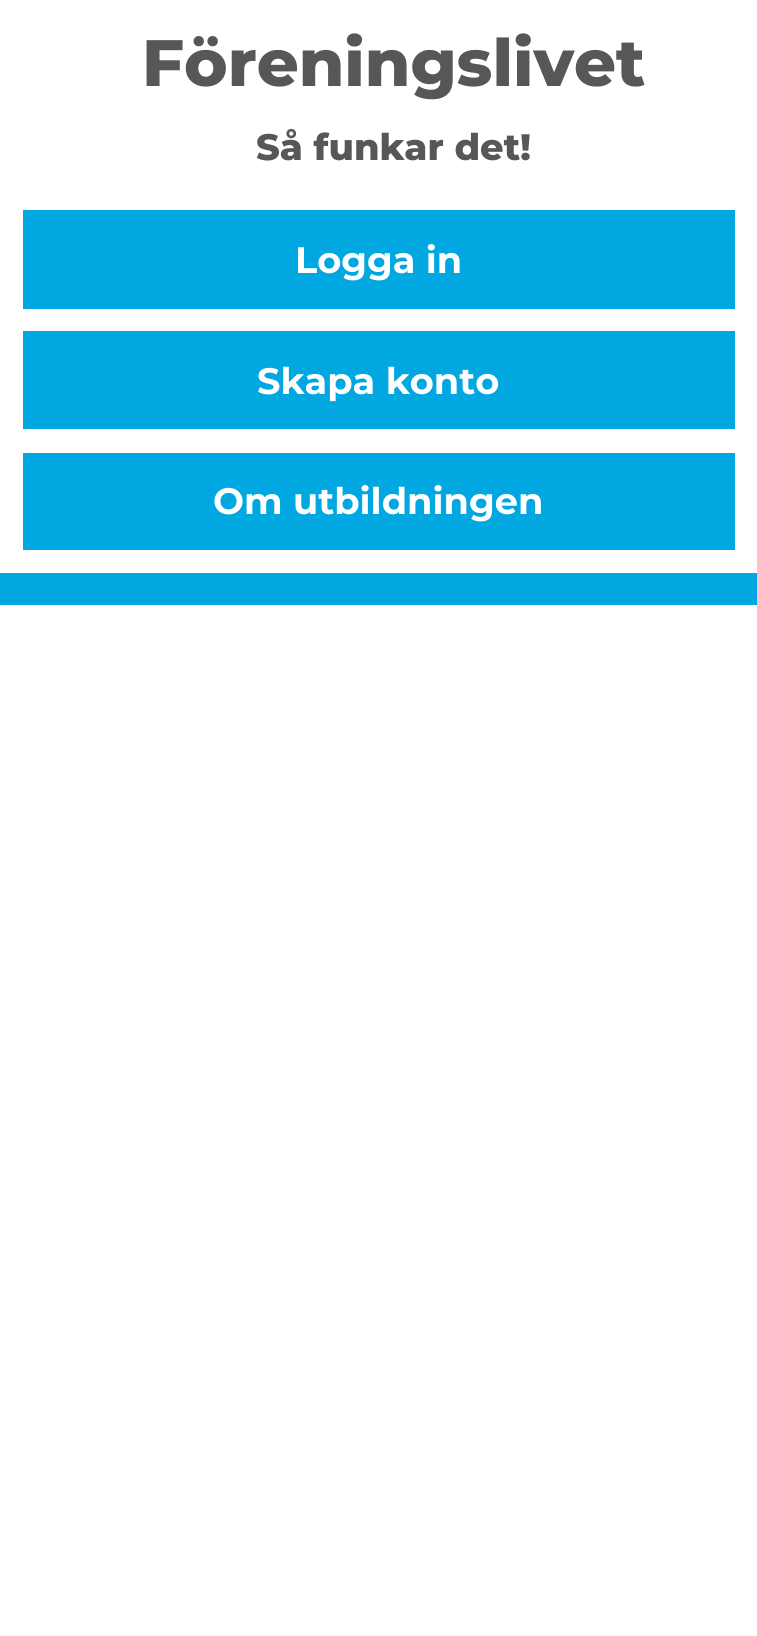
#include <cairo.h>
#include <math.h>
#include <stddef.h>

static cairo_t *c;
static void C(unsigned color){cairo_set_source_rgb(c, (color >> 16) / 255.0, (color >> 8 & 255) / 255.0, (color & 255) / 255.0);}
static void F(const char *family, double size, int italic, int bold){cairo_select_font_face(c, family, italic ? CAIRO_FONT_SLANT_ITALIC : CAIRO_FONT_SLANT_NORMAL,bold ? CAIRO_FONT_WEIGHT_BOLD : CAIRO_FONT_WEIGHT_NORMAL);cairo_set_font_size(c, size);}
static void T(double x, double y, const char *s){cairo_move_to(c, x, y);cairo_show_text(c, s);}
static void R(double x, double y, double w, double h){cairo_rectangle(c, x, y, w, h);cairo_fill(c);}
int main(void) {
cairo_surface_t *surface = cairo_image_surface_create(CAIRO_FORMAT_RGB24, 757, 1636);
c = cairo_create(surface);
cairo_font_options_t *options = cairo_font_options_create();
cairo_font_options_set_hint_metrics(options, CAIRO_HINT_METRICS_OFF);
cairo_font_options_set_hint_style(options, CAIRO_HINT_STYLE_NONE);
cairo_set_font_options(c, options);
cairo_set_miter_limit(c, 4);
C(0xffffff);
cairo_paint(c);
C(0x00a7e0);
R(0,573,757,32);
F("Montserrat ExtraBold",65.5,0,0);
C(0x575756);
T(142,86,"Föreningslivet");
F("Montserrat ExtraBold",36.75,0,0);
T(256,160,"Så funkar det!");
C(0x00a7e0);
R(23,210,712,99);
F("Montserrat",36.75,0,1);
C(0xffffff);
T(295,273,"Logga in");
C(0x00a7e0);
R(23,331,712,98);
C(0xffffff);
T(257,394,"Skapa konto");
C(0x00a7e0);
R(23,453,712,97);
C(0xffffff);
T(213,514,"Om utbildningen");
cairo_surface_write_to_png(surface, "o.png");
cairo_font_options_destroy(options);
cairo_destroy(c);
cairo_surface_destroy(surface);
return 0;
}
